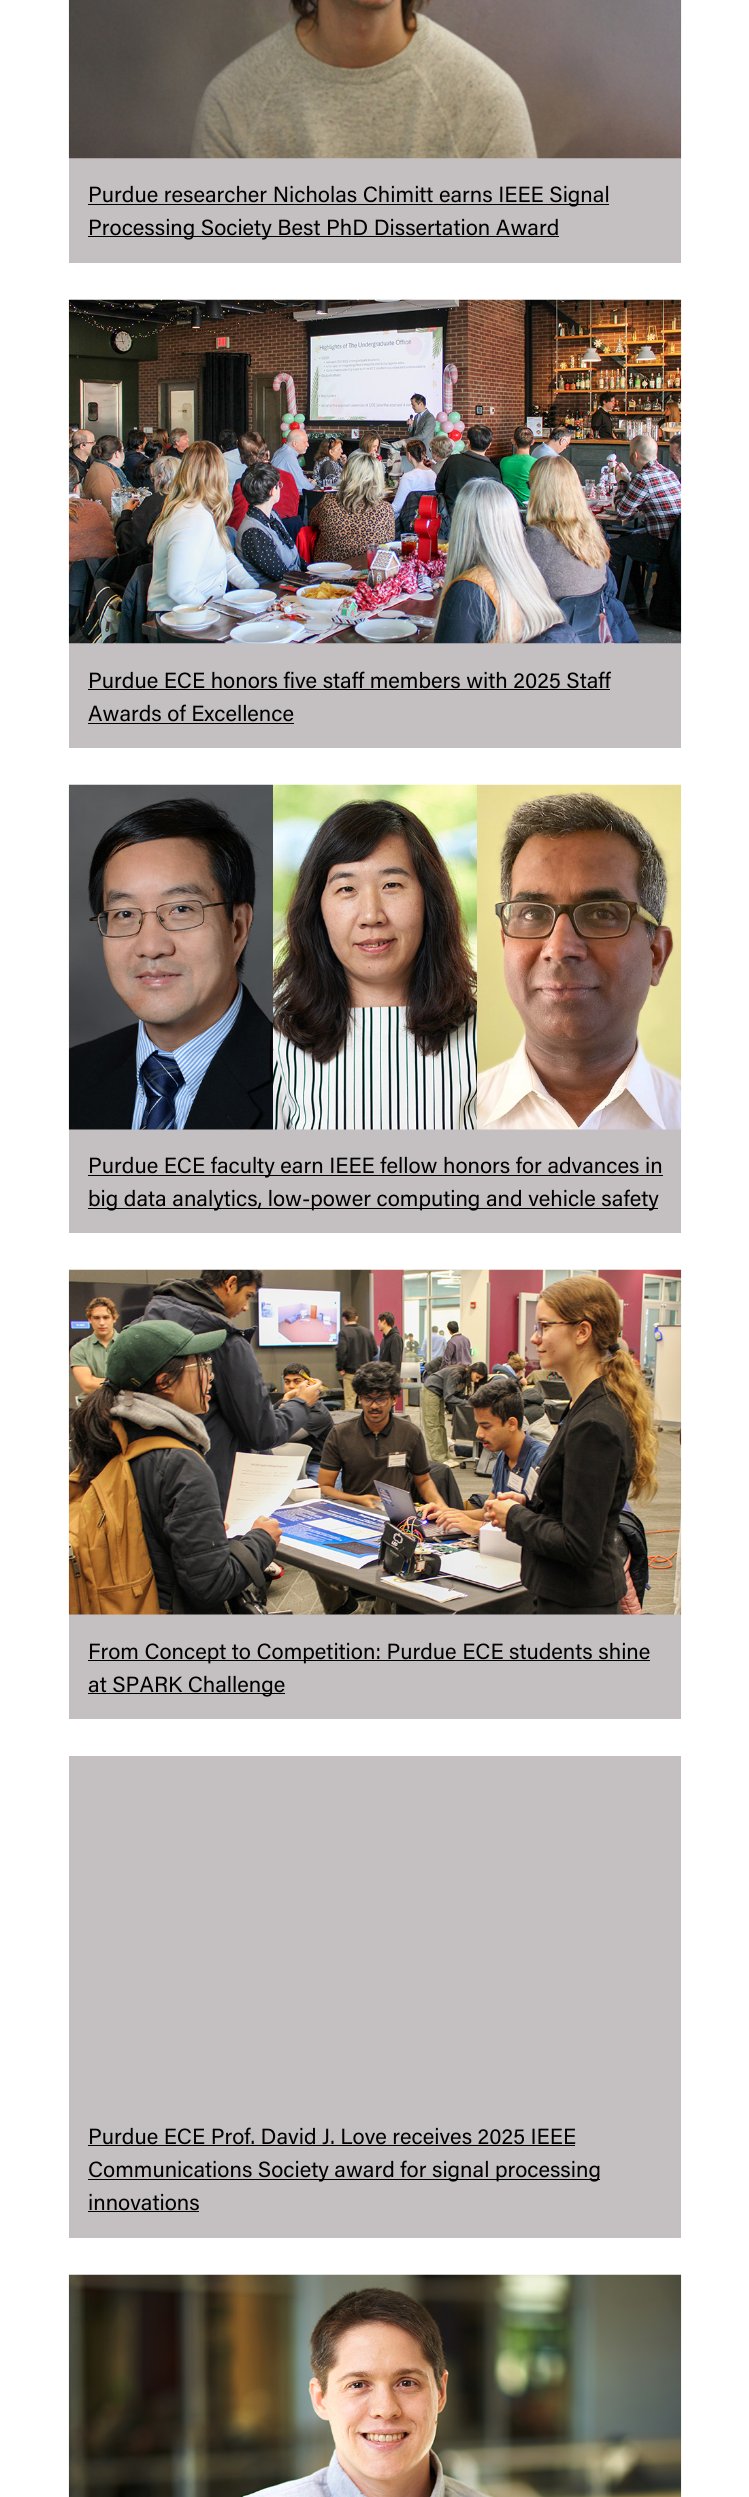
#include <cairo.h>
#include <math.h>
#include <stddef.h>

static cairo_t *c;
static void C(unsigned color){cairo_set_source_rgb(c, (color >> 16) / 255.0, (color >> 8 & 255) / 255.0, (color & 255) / 255.0);}
static void F(const char *family, double size, int italic, int bold){cairo_select_font_face(c, family, italic ? CAIRO_FONT_SLANT_ITALIC : CAIRO_FONT_SLANT_NORMAL,bold ? CAIRO_FONT_WEIGHT_BOLD : CAIRO_FONT_WEIGHT_NORMAL);cairo_set_font_size(c, size);}
static void T(double x, double y, const char *s){cairo_move_to(c, x, y);cairo_show_text(c, s);}
static void R(double x, double y, double w, double h){cairo_rectangle(c, x, y, w, h);cairo_fill(c);}
static void I(const char *path, double x, double y, double w, double h){cairo_surface_t *image = cairo_image_surface_create_from_png(path);cairo_save(c);cairo_set_source_surface(c, image, x, y);cairo_rectangle(c, x, y, w, h);cairo_fill(c);cairo_restore(c);cairo_surface_destroy(image);}
int main(void) {
cairo_surface_t *surface = cairo_image_surface_create(CAIRO_FORMAT_RGB24, 749, 2497);
c = cairo_create(surface);
cairo_font_options_t *options = cairo_font_options_create();
cairo_font_options_set_hint_metrics(options, CAIRO_HINT_METRICS_OFF);
cairo_font_options_set_hint_style(options, CAIRO_HINT_STYLE_NONE);
cairo_set_font_options(c, options);
cairo_set_miter_limit(c, 4);
C(0xffffff);
cairo_paint(c);
C(0xc4bfc0);
R(69,158,612,105);
I("1.png",68,0,614,159);
C(0x000000);
R(88,204,521,1);
F("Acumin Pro",22,0,0);
T(88,202,"Purdue researcher Nicholas Chimitt earns IEEE Signal");
R(88,236,471,1);
T(88,235,"Processing Society Best PhD Dissertation Award");
C(0xc4bfc0);
R(69,643,612,105);
I("2.png",68,299,614,345);
C(0x000000);
T(88,688,"Purdue ECE honors five staff members with 2025 Staff");
R(88,689,522,1);
T(88,721,"Awards of Excellence");
R(88,723,206,1);
C(0xc4bfc0);
R(69,1129,612,104);
I("3.png",68,784,614,346);
C(0x000000);
R(88,1175,575,1);
T(88,1173,"Purdue ECE faculty earn IEEE fellow honors for advances in");
R(88,1208,570,1);
T(88,1206,"big data analytics, low-power computing and vehicle safety");
C(0xc4bfc0);
R(69,1614,612,105);
I("4.png",68,1269,614,346);
C(0x000000);
R(88,1660,562,1);
T(88,1659,"From Concept to Competition: Purdue ECE students shine");
R(88,1693,197,1);
T(88,1692,"at SPARK Challenge");
C(0xc4bfc0);
R(69,1756,612,482);
C(0x000000);
T(88,2144,"Purdue ECE Prof. David J. Love receives 2025 IEEE");
R(88,2145,487,1);
R(88,2179,512,1);
T(88,2177,"Communications Society award for signal processing");
T(88,2210,"innovations");
R(88,2211,111,1);
I("5.png",68,2274,614,223);
cairo_surface_write_to_png(surface, "o.png");
cairo_font_options_destroy(options);
cairo_destroy(c);
cairo_surface_destroy(surface);
return 0;
}
